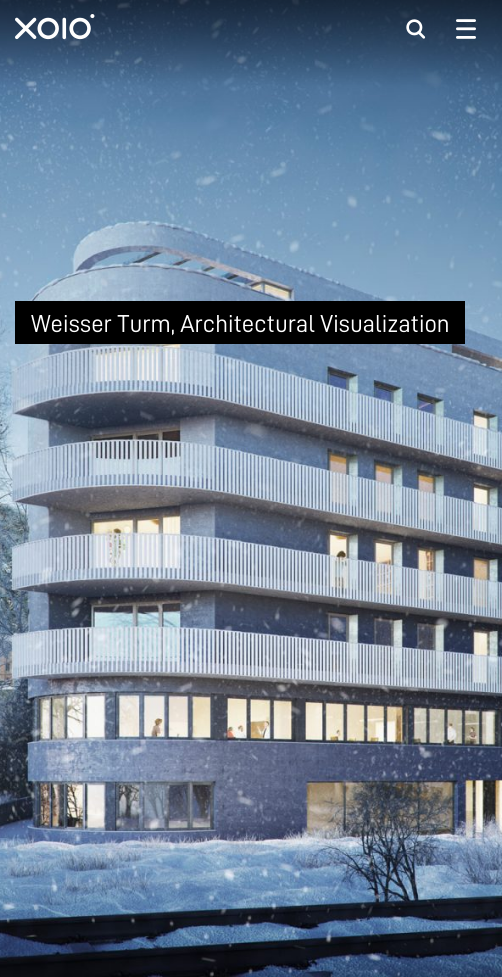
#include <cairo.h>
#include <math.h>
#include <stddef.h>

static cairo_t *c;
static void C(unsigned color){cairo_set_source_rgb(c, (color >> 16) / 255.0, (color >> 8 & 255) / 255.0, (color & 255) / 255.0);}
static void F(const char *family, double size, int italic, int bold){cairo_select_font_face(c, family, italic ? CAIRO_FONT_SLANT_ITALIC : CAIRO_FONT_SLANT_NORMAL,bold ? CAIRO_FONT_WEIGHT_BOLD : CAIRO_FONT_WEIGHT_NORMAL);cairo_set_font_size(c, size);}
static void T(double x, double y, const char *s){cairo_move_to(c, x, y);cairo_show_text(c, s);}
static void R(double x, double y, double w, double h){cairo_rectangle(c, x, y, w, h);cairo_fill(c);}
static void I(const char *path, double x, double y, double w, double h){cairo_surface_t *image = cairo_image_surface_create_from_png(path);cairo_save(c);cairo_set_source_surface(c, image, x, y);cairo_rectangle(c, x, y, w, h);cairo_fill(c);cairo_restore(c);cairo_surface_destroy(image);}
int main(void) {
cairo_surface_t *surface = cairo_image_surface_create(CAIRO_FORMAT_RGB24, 502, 977);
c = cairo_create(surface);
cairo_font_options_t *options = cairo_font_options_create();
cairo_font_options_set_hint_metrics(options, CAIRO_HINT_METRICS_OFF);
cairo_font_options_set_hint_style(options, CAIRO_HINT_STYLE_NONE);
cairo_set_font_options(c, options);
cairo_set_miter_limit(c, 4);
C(0xffffff);
cairo_paint(c);
I("4.png",0,0,502,977);
I("1.png",15,14,80,26);
I("2.png",406,19,20,20);
I("3.png",456,19,20,20);
C(0x000000);
R(15,301,450,43);
F("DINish",24.6,0,0);
C(0xffffff);
T(31,332,"Weisser Turm, Architectural Visualization");
cairo_surface_write_to_png(surface, "o.png");
cairo_font_options_destroy(options);
cairo_destroy(c);
cairo_surface_destroy(surface);
return 0;
}
